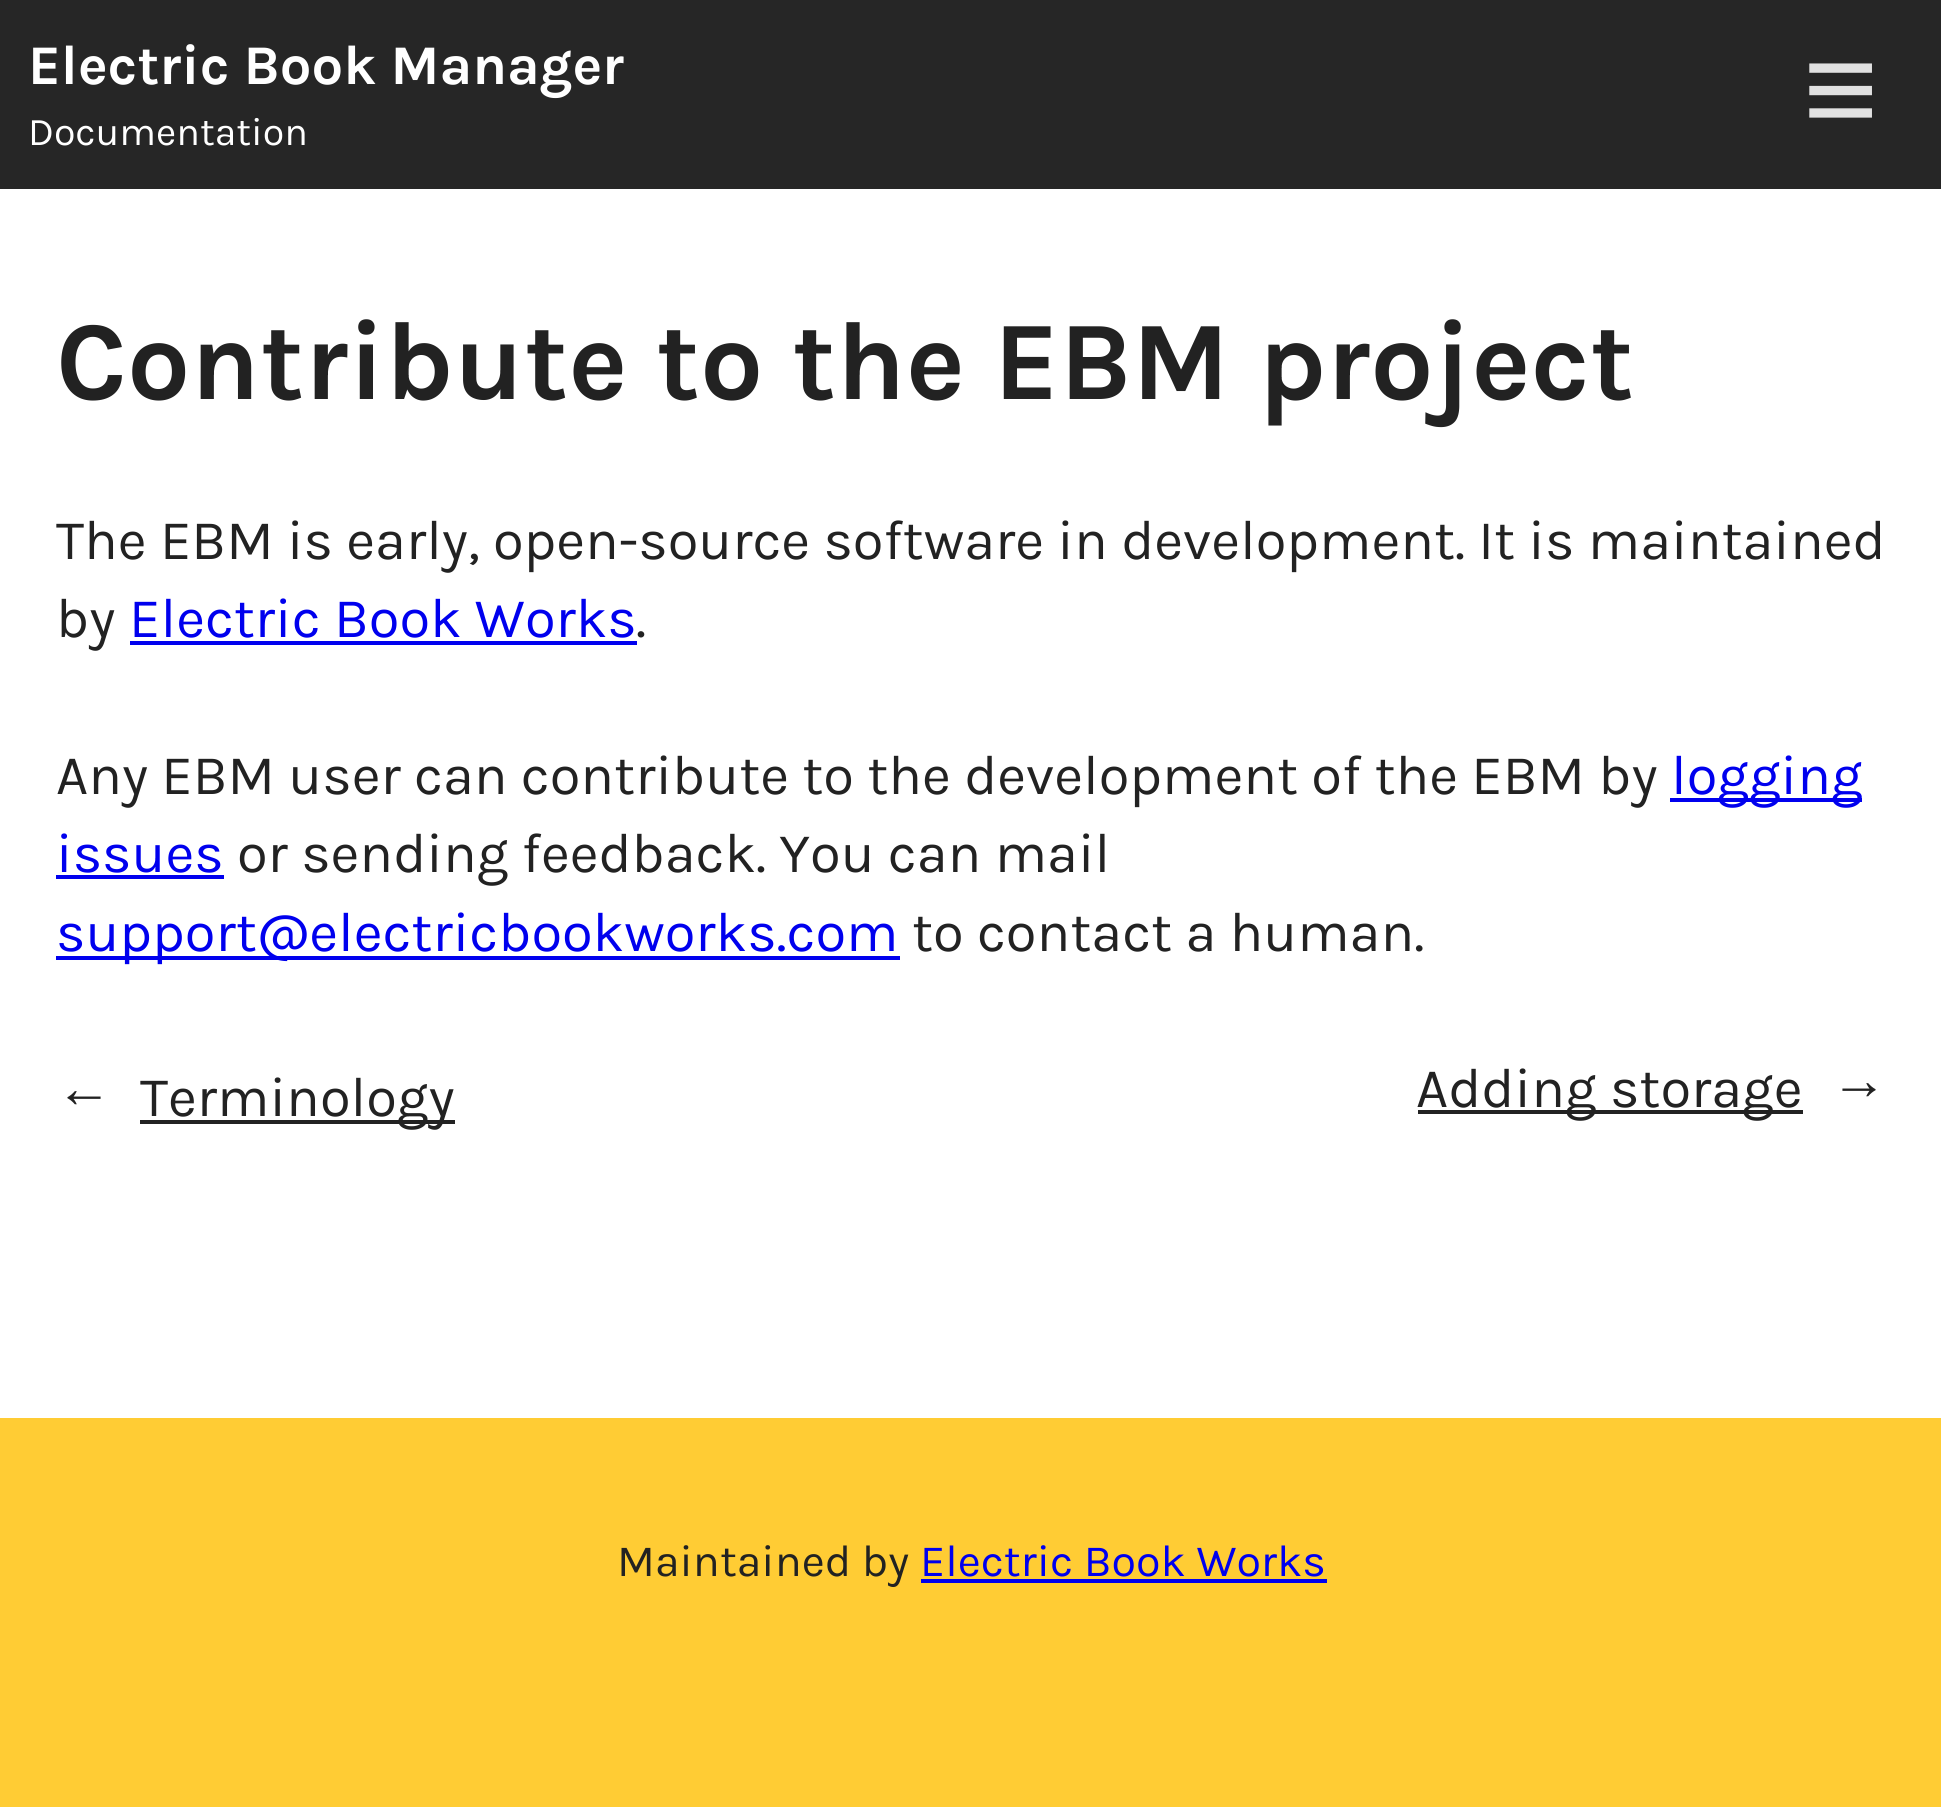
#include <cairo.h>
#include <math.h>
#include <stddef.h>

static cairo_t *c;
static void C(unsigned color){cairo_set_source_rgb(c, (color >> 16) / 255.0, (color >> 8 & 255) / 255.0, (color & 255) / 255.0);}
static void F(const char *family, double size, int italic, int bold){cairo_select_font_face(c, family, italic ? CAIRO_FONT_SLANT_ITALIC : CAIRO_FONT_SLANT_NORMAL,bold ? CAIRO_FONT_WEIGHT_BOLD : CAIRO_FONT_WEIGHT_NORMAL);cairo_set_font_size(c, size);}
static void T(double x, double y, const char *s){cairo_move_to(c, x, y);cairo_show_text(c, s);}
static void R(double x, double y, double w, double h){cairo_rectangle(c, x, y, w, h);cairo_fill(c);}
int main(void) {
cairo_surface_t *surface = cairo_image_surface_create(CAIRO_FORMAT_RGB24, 1941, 1807);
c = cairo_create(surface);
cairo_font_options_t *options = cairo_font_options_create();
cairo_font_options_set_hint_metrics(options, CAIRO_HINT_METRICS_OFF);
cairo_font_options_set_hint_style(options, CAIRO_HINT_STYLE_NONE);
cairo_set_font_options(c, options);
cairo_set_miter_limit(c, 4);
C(0xffffff);
cairo_paint(c);
C(0x262626);
R(0,0,1941,189);
F("Karla",56,0,1);
C(0xffffff);
T(28,84,"Electric Book Manager");
F("Karla",39.25,0,0);
T(28,145,"Documentation");
F("Liberation Sans",129,0,0);
C(0xe1e1e1);
T(1803,133,"≡");
F("Karla",112,0,1);
C(0x222222);
T(56,399,"Contribute to the EBM project");
F("Karla",56,0,0);
T(56,559,"The EBM is early, open-source software in development. It is maintained");
T(56,637,"by");
C(0x0000ee);
T(129,637,"Electric Book Works");
R(130,641,507,4);
C(0x222222);
T(636,637,".");
T(56,794,"Any EBM user can contribute to the development of the EBM by");
C(0x0000ee);
R(1670,798,192,4);
T(1671,794,"logging");
T(56,872,"issues");
R(56,875,168,4);
C(0x222222);
T(237,872,"or sending feedback. You can mail");
C(0x0000ee);
R(56,956,844,4);
T(56,951,"support@electricbookworks.com");
C(0x222222);
T(912,951,"to contact a human.");
F("Liberation Sans",56,0,0);
T(56,1107,"←");
R(140,1120,315,4);
F("Karla",56,0,0);
T(140,1116,"Terminology");
R(1418,1110,385,4);
T(1416,1107,"Adding storage");
F("Liberation Sans",56,0,0);
T(1831,1099,"→");
C(0xffcc34);
R(0,1418,1941,389);
F("Karla",44.75,0,0);
C(0x222222);
T(617,1576,"Maintained by");
C(0x0000ee);
T(920,1576,"Electric Book Works");
R(921,1579,406,4);
cairo_surface_write_to_png(surface, "o.png");
cairo_font_options_destroy(options);
cairo_destroy(c);
cairo_surface_destroy(surface);
return 0;
}
